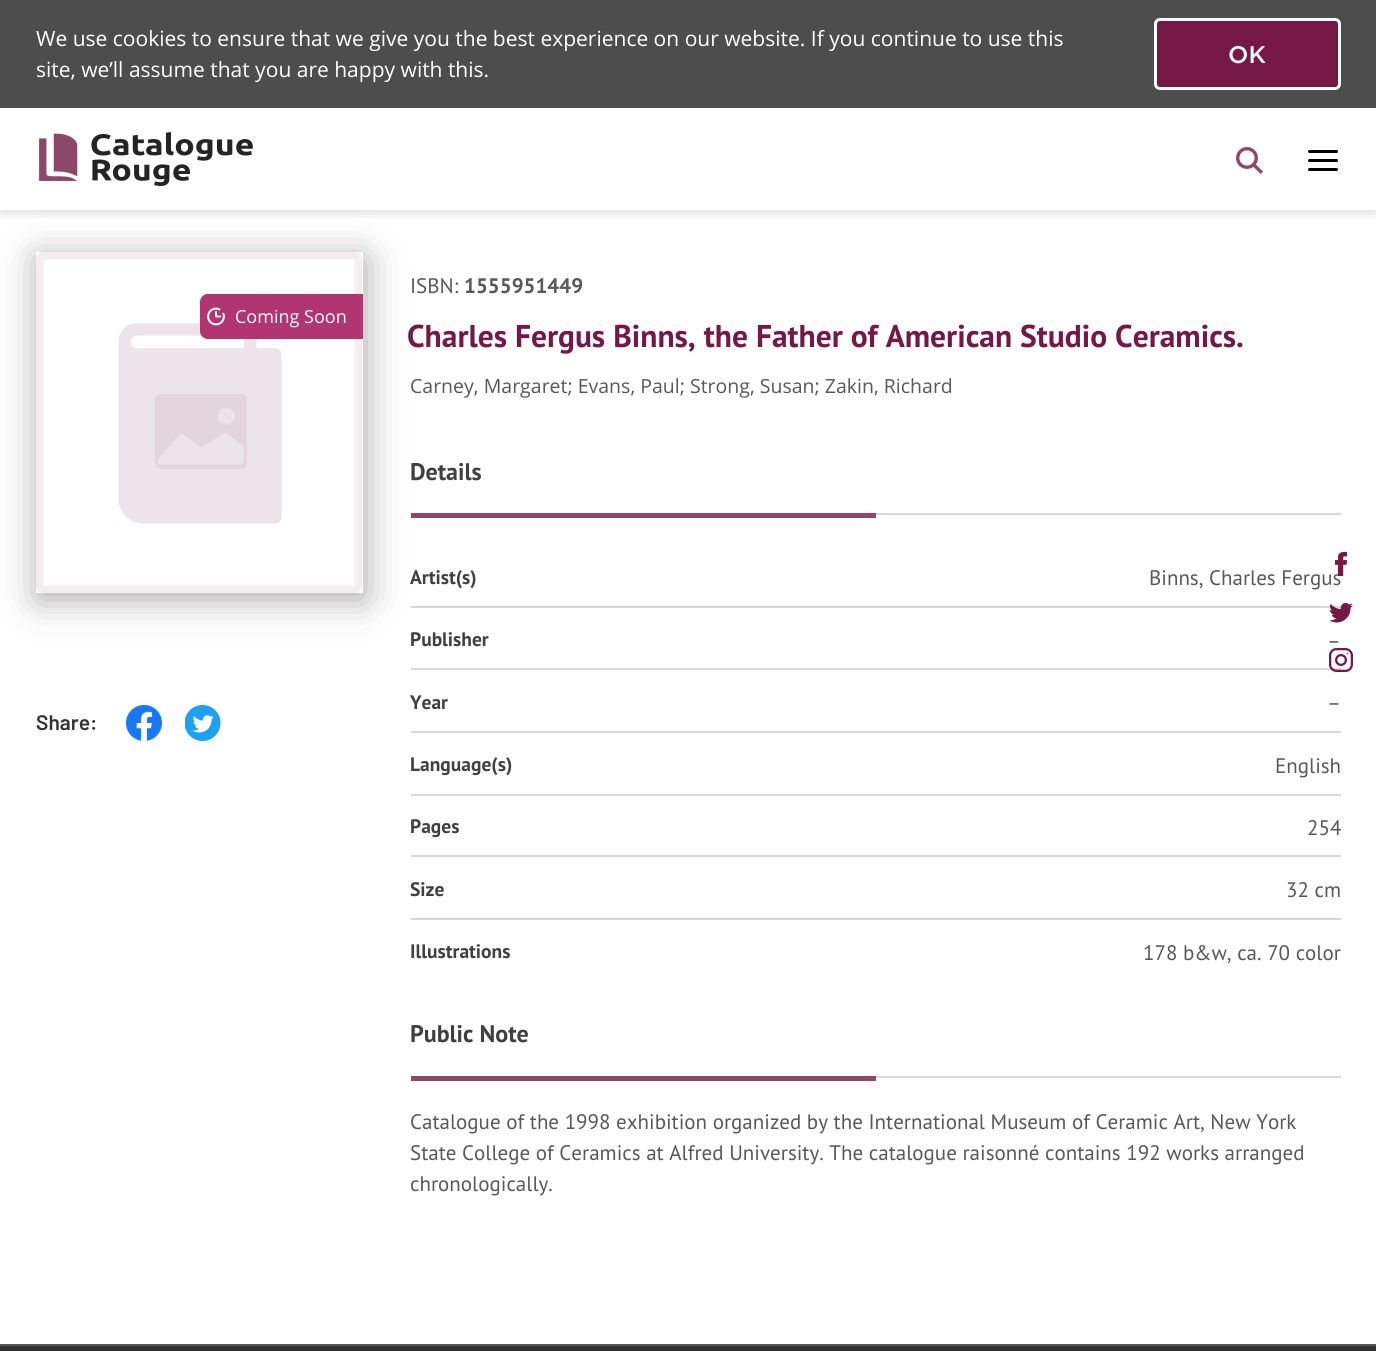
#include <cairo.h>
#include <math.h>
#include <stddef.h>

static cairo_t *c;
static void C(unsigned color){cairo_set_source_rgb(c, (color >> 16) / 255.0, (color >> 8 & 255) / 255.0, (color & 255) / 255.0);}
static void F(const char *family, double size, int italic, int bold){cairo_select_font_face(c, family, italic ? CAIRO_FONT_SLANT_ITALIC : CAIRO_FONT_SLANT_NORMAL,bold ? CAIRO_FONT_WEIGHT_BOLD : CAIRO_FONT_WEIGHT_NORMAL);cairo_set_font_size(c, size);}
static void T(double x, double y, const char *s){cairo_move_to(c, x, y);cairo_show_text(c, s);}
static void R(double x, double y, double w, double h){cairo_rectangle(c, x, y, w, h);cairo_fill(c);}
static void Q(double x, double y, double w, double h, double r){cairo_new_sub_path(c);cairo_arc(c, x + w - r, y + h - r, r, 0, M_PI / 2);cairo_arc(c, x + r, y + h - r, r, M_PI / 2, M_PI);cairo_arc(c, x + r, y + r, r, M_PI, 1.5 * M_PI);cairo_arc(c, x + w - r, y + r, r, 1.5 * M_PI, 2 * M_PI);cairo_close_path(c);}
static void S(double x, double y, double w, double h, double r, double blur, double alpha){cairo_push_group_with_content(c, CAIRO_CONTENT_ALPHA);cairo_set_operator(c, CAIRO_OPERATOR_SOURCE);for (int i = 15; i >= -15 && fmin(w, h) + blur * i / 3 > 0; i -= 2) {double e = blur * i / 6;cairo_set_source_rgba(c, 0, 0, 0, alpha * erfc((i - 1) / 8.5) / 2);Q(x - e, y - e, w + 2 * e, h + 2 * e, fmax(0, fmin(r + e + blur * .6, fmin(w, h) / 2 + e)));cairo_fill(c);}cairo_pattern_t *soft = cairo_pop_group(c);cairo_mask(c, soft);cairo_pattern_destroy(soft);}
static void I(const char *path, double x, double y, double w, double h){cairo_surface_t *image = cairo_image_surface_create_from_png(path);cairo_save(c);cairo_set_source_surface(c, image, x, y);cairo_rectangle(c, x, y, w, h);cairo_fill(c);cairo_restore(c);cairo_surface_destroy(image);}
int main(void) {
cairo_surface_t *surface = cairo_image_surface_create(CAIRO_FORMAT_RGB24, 1376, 1351);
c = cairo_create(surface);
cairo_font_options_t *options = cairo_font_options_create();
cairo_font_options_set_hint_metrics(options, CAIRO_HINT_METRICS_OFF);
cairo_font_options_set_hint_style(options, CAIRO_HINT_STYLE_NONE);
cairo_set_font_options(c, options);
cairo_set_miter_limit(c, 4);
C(0xffffff);
cairo_paint(c);
cairo_save(c);
cairo_rectangle(c,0,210,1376,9);
cairo_clip(c);
C(0x000000);
S(0,2,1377,210,0,6,.16);
cairo_restore(c);
C(0x4d4d4d);
R(0,0,1376,108);
F("Open Sans",21,0,0);
C(0xffffff);
T(36,46,"We use cookies to ensure that we give you the best experience on our website. If you continue to use this");
T(36,77,"site, we’ll assume that you are happy with this.");
C(0x761845);
Q(1155.5,19.5,184,69,4.5);
cairo_fill_preserve(c);
C(0xffffff);
cairo_set_line_width(c,3);
cairo_stroke(c);
F("Gotham Medium",24,0,0);
T(1228,63,"OK");
I("1.png",39,132,214,54);
I("2.png",1236,147,27,27);
C(0x000000);
Q(1308,150,30,3,1.5);
cairo_fill(c);
Q(1308,159,30,3,1.5);
cairo_fill(c);
Q(1308,168,30,3,1.5);
cairo_fill(c);
C(0xd8d8d8);
R(411,606,930,2);
cairo_save(c);
cairo_set_fill_rule(c,CAIRO_FILL_RULE_EVEN_ODD);
cairo_new_path(c);
cairo_move_to(c,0,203);
cairo_line_to(c,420,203);
cairo_line_to(c,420,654);
cairo_line_to(c,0,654);
cairo_close_path(c);
cairo_move_to(c,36,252);
cairo_line_to(c,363,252);
cairo_line_to(c,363,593);
cairo_line_to(c,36,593);
cairo_close_path(c);
cairo_clip(c);
C(0xa8a8a8);
S(38,258,327,341,0,18,1);
cairo_restore(c);
I("3.png",36,252,326,341);
C(0xb03570);
cairo_new_path(c);
cairo_move_to(c,208,294);
cairo_line_to(c,363,294);
cairo_line_to(c,363,339);
cairo_line_to(c,208,339);
cairo_curve_to(c,203.5,339,200,335.5,200,331);
cairo_line_to(c,200,302);
cairo_curve_to(c,200,297.5,203.5,294,208,294);
cairo_close_path(c);
cairo_fill(c);
I("4.png",207,307,18,19);
F("Open Sans",18,0,0);
C(0xffffff);
T(235,323,"Coming Soon");
F("Barlow SemiBold",21,0,0);
C(0x333333);
T(36,730,"Share:");
I("5.png",126,705,36,36);
I("6.png",185,705,36,36);
F("PT Sans",21,0,0);
C(0x585858);
T(410,293,"ISBN:");
F("PT Sans",21,0,1);
T(464,293,"1555951449");
F("PT Sans",31.5,0,1);
C(0x761845);
T(407,347,"Charles Fergus Binns, the Father of American Studio Ceramics.");
F("Open Sans",19.5,0,0);
C(0x585858);
T(410,393,"Carney, Margaret; Evans, Paul; Strong, Susan; Zakin, Richard");
C(0xd8d8d8);
R(876,513,465,2);
F("PT Sans",24,0,1);
C(0x404040);
T(410,480,"Details");
C(0x8d4768);
R(411,513,465,5);
F("PT Sans",19.5,0,1);
C(0x404040);
T(410,584,"Artist(s)");
F("PT Sans",21,0,0);
C(0x585858);
T(1149,585,"Binns, Charles Fergus");
F("PT Sans",19.5,0,1);
C(0x404040);
T(410,646,"Publisher");
F("PT Sans",21,0,0);
C(0x585858);
T(1327,648,"–");
C(0xd8d8d8);
R(411,668,930,2);
F("PT Sans",19.5,0,1);
C(0x404040);
T(410,709,"Year");
F("PT Sans",21,0,0);
C(0x585858);
T(1327,710,"–");
C(0xd8d8d8);
R(411,731,930,2);
F("PT Sans",19.5,0,1);
C(0x404040);
T(410,771,"Language(s)");
F("PT Sans",21,0,0);
C(0x585858);
T(1275,773,"English");
C(0xd8d8d8);
R(411,794,930,2);
F("PT Sans",19.5,0,1);
C(0x404040);
T(410,833,"Pages");
F("PT Sans",21,0,0);
C(0x585858);
T(1307,835,"254");
C(0xd8d8d8);
R(411,855,930,2);
F("PT Sans",19.5,0,1);
C(0x404040);
T(410,896,"Size");
F("PT Sans",21,0,0);
C(0x585858);
T(1286,897,"32 cm");
C(0xd8d8d8);
R(411,918,930,2);
F("PT Sans",19.5,0,1);
C(0x404040);
T(410,958,"Illustrations");
F("PT Sans",21,0,0);
C(0x585858);
T(1143,960,"178 b&w, ca. 70 color");
C(0xd8d8d8);
R(876,1076,465,2);
F("PT Sans",24,0,1);
C(0x404040);
T(410,1042,"Public Note");
C(0x8d4768);
R(411,1076,465,5);
F("PT Sans",21,0,0);
C(0x585858);
T(410,1129,"Catalogue of the 1998 exhibition organized by the International Museum of Ceramic Art, New York");
T(410,1160,"State College of Ceramics at Alfred University. The catalogue raisonné contains 192 works arranged");
T(410,1191,"chronologically.");
C(0x333333);
R(0,1346,1376,5);
C(0x565656);
R(0,1344,1376,2);
I("7.png",1334,552,14,24);
I("8.png",1329,603,24,20);
I("9.png",1329,648,24,24);
cairo_surface_write_to_png(surface, "o.png");
cairo_font_options_destroy(options);
cairo_destroy(c);
cairo_surface_destroy(surface);
return 0;
}
